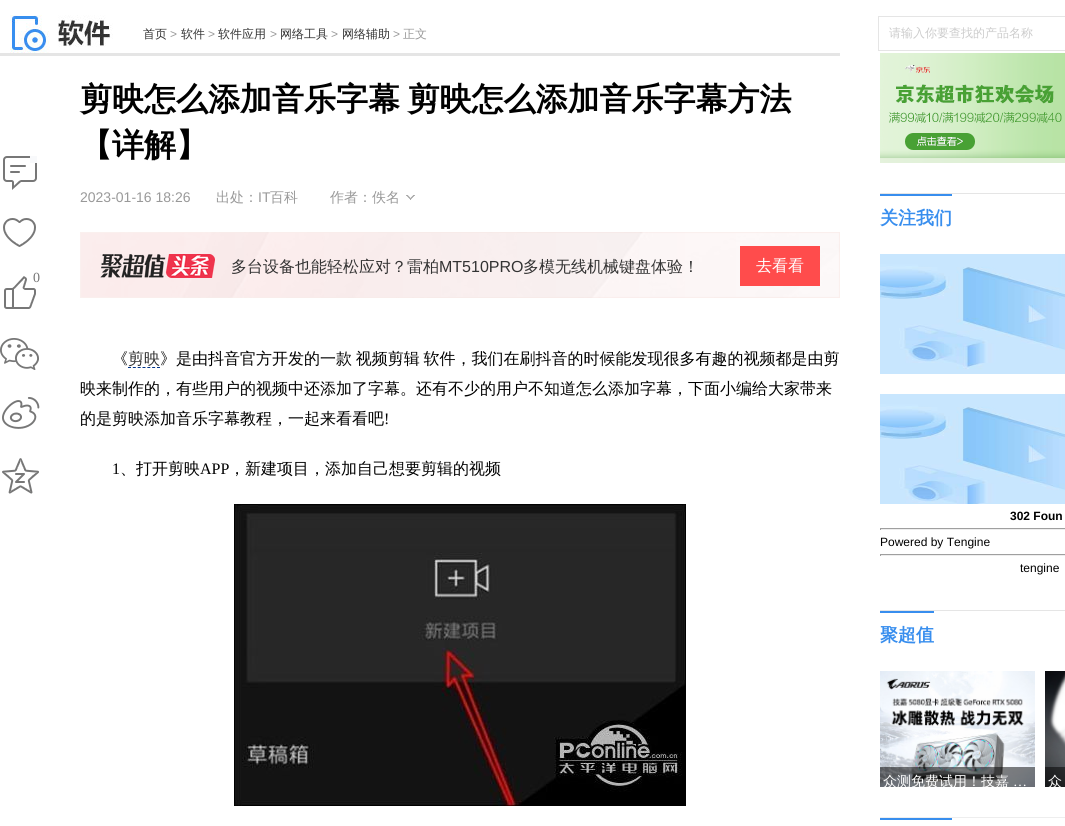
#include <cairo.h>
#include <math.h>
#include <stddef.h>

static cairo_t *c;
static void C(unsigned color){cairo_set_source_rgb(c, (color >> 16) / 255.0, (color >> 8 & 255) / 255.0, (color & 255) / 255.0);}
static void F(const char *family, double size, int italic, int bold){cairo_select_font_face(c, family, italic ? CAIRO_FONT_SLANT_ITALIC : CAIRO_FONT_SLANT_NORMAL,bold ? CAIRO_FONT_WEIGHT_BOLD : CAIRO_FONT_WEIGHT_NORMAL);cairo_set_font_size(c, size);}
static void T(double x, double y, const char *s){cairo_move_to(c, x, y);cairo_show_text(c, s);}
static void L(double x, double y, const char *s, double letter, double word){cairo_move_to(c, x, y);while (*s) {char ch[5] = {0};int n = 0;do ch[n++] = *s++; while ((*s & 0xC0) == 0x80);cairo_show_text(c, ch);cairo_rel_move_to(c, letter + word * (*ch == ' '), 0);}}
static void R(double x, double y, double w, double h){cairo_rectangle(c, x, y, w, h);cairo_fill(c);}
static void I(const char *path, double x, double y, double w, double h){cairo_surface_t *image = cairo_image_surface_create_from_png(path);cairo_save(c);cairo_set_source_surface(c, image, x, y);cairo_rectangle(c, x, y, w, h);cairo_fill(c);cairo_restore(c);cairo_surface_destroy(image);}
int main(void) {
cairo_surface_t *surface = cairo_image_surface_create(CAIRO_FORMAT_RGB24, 1065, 826);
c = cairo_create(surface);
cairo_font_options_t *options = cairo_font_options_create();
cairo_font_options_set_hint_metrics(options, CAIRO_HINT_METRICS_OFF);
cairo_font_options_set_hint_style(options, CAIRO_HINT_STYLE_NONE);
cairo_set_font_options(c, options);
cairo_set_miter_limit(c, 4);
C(0xffffff);
cairo_paint(c);
I("1.png",10,15,103,38);
F("WenQuanYi Zen Hei Medium",12,0,0);
C(0x333333);
T(143,38,"首页");
F("Liberation Sans",12,0,0);
C(0x999999);
T(170,38,">");
F("WenQuanYi Zen Hei Medium",12,0,0);
C(0x333333);
T(181,38,"软件");
F("Liberation Sans",12,0,0);
C(0x999999);
T(208,38,">");
F("WenQuanYi Zen Hei Medium",12,0,0);
C(0x333333);
T(218,38,"软件应用");
F("Liberation Sans",12,0,0);
C(0x999999);
T(270,38,">");
F("WenQuanYi Zen Hei Medium",12,0,0);
C(0x333333);
T(280,38,"网络工具");
F("Liberation Sans",12,0,0);
C(0x999999);
T(331,38,">");
F("WenQuanYi Zen Hei Medium",12,0,0);
C(0x333333);
T(342,38,"网络辅助");
F("Liberation Sans",12,0,0);
C(0x999999);
T(393,38,">");
F("WenQuanYi Zen Hei Medium",12,0,0);
T(403,38,"正文");
C(0xe5e5e5);
R(878,16,187,1);
R(878,50,187,1);
R(878,16,1,35);
C(0xcccccc);
T(889,37,"请输入你要查找的产品名称");
C(0xe5e5e5);
R(0,53,840,3);
F("WenQuanYi Zen Hei",32,0,1);
C(0x000000);
L(80,110,"剪映怎么添加音乐字幕 剪映怎么添加音乐字幕方法",0,-2);
T(80,156,"【详解】");
F("Liberation Sans",14,0,0);
C(0x999999);
T(80,202,"2023-01-16 18:26");
F("WenQuanYi Zen Hei Medium",14,0,0);
T(216,202,"出处：");
F("Liberation Sans",14,0,0);
T(258,202,"IT");
F("WenQuanYi Zen Hei Medium",14,0,0);
T(270,202,"百科");
T(330,202,"作者：佚名");
I("2.png",406,195,9,5);
I("3.png",80,232,760,66);
I("4.png",100,254,115,24);
F("WenQuanYi Zen Hei Medium",16,0,0);
C(0x333333);
T(231,272,"多台设备也能轻松应对？雷柏");
F("Liberation Sans",16,0,0);
T(439,272,"MT510PRO");
F("WenQuanYi Zen Hei Medium",16,0,0);
T(523,272,"多模无线机械键盘体验！");
C(0xff4c4c);
R(740,246,80,40);
C(0xffffff);
T(756,271,"去看看");
I("5.png",3,156,34,34);
I("6.png",3,218,33,29);
I("7.png",0,338,39,32);
I("8.png",2,397,38,32);
I("9.png",2,458,37,36);
I("10.png",4,276,32,33);
F("Liberation Serif",14,0,0);
C(0x777777);
T(33,282,"0");
F("WenQuanYi Zen Hei Medium",16,0,0);
C(0x000000);
T(112,364,"《");
C(0x333333);
T(128,364,"剪映");
cairo_new_path(c);
cairo_move_to(c,128,367.5);
cairo_line_to(c,160,367.5);
C(0x003388);
cairo_set_line_width(c,1);
cairo_set_dash(c,(double[]){3,1.83},2,0);
cairo_stroke(c);
C(0x000000);
L(160,364,"》是由抖音官方开发的一款 视频剪辑 软件，我们在刷抖音的时候能发现很多有趣的视频都是由剪",0,-1);
T(80,394,"映来制作的，有些用户的视频中还添加了字幕。还有不少的用户不知道怎么添加字幕，下面小编给大家带来");
T(80,424,"的是剪映添加音乐字幕教程，一起来看看吧");
F("Liberation Serif",16,0,0);
T(384,424,"!");
T(112,474,"1");
F("WenQuanYi Zen Hei Medium",16,0,0);
T(120,474,"、打开剪映");
F("Liberation Serif",16,0,0);
T(200,474,"APP");
F("WenQuanYi Zen Hei Medium",16,0,0);
T(229,474,"，新建项目，添加自己想要剪辑的视频");
I("11.png",234,504,452,302);
I("12.png",880,53,185,110);
C(0xe5e5e5);
R(880,193,185,1);
C(0x388eee);
R(880,194,72,2);
F("WenQuanYi Zen Hei",18,0,1);
T(880,224,"关注我们");
I("13.png",880,254,185,120);
I("14.png",880,394,185,110);
F("Liberation Sans",12,0,1);
C(0x000000);
T(1010,520,"302 Foun");
C(0x9f9f9f);
R(880,528,185,1);
C(0xeeeeee);
R(880,529,185,1);
C(0x9f9f9f);
R(880,528,1,2);
F("Liberation Sans",12,0,0);
C(0x000000);
T(880,546,"Powered by Tengine");
C(0x9f9f9f);
R(880,554,185,1);
C(0xeeeeee);
R(880,555,185,1);
C(0x9f9f9f);
R(880,554,1,2);
C(0x000000);
T(1020,572,"tengine");
C(0xe5e5e5);
R(880,610,185,1);
C(0x388eee);
R(880,611,54,2);
F("WenQuanYi Zen Hei",18,0,1);
T(880,641,"聚超值");
I("15.png",880,671,155,116);
cairo_set_source_rgba(c,0,0,0,0.5);
R(880,767,155,20);
cairo_save(c);
cairo_rectangle(c,880,767,155,20);
cairo_clip(c);
F("WenQuanYi Zen Hei Medium",14,0,0);
C(0xffffff);
T(883,786,"众测免费试用！技嘉");
cairo_restore(c);
F("Liberation Serif",14,0,0);
C(0xffffff);
T(1013,786,"…");
I("16.png",1045,671,20,116);
cairo_set_source_rgba(c,0,0,0,0.5);
R(1045,767,20,20);
cairo_save(c);
cairo_rectangle(c,1045,767,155,20);
cairo_clip(c);
F("WenQuanYi Zen Hei Medium",14,0,0);
C(0xffffff);
T(1048,786,"众");
cairo_restore(c);
C(0xeeeeee);
R(880,817,185,1);
C(0x388eee);
R(880,818,72,2);
cairo_surface_write_to_png(surface, "o.png");
cairo_font_options_destroy(options);
cairo_destroy(c);
cairo_surface_destroy(surface);
return 0;
}
